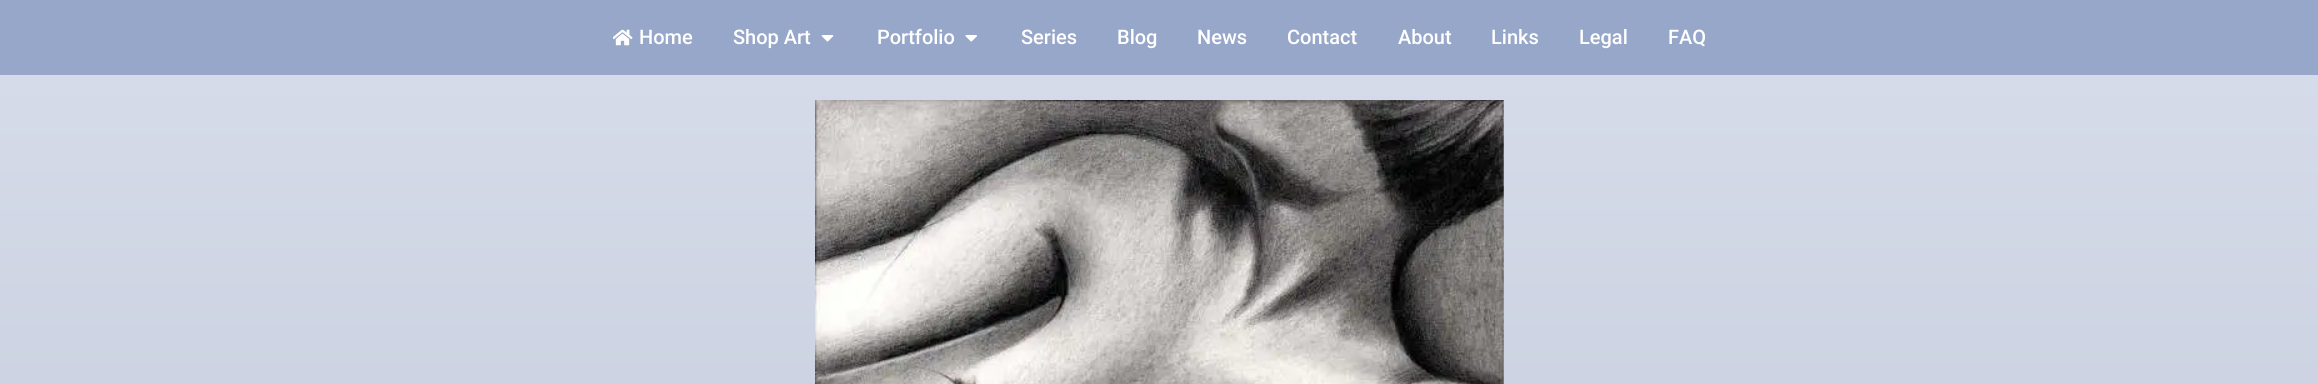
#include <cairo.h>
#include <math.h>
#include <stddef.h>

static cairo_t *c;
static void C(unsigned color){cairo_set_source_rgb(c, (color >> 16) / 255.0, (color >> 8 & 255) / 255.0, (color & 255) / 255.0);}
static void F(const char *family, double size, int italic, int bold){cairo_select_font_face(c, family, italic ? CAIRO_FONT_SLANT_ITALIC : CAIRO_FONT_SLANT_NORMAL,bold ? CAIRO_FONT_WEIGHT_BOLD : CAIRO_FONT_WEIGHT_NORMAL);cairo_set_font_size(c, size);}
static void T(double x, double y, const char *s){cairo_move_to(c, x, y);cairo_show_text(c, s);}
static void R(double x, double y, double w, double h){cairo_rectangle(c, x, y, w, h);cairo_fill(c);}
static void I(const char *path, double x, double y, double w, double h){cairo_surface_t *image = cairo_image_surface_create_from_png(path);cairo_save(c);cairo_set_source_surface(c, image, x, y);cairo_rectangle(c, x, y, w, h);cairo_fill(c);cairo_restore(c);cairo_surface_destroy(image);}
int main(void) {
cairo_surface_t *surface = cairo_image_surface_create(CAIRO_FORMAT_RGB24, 2318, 384);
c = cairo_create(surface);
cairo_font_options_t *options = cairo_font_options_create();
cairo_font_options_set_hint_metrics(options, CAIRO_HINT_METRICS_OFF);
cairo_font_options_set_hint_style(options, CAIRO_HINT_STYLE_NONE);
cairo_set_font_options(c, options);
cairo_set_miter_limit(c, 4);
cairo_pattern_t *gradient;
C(0x97a7c9);
cairo_paint(c);
I("1.png",613,29,20,17);
F("Roboto Medium",20,0,0);
C(0xffffff);
T(639,44,"Home");
T(733,44,"Shop Art");
I("2.png",821,35,13,7);
T(877,44,"Portfolio");
I("3.png",965,35,12,7);
T(1021,44,"Series");
T(1117,44,"Blog");
T(1197,44,"News");
T(1287,44,"Contact");
T(1398,44,"About");
T(1491,44,"Links");
T(1579,44,"Legal");
T(1668,44,"FAQ");
gradient = cairo_pattern_create_linear(1159,75,1159,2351);
cairo_pattern_add_color_stop_rgba(gradient,0,0.835,0.859,0.914,1);
cairo_pattern_add_color_stop_rgba(gradient,1,0.592,0.624,0.698,1);
cairo_set_source(c,gradient);
cairo_pattern_destroy(gradient);
R(0,75,2318,309);
I("4.png",815,100,689,284);
cairo_surface_write_to_png(surface, "o.png");
cairo_font_options_destroy(options);
cairo_destroy(c);
cairo_surface_destroy(surface);
return 0;
}
